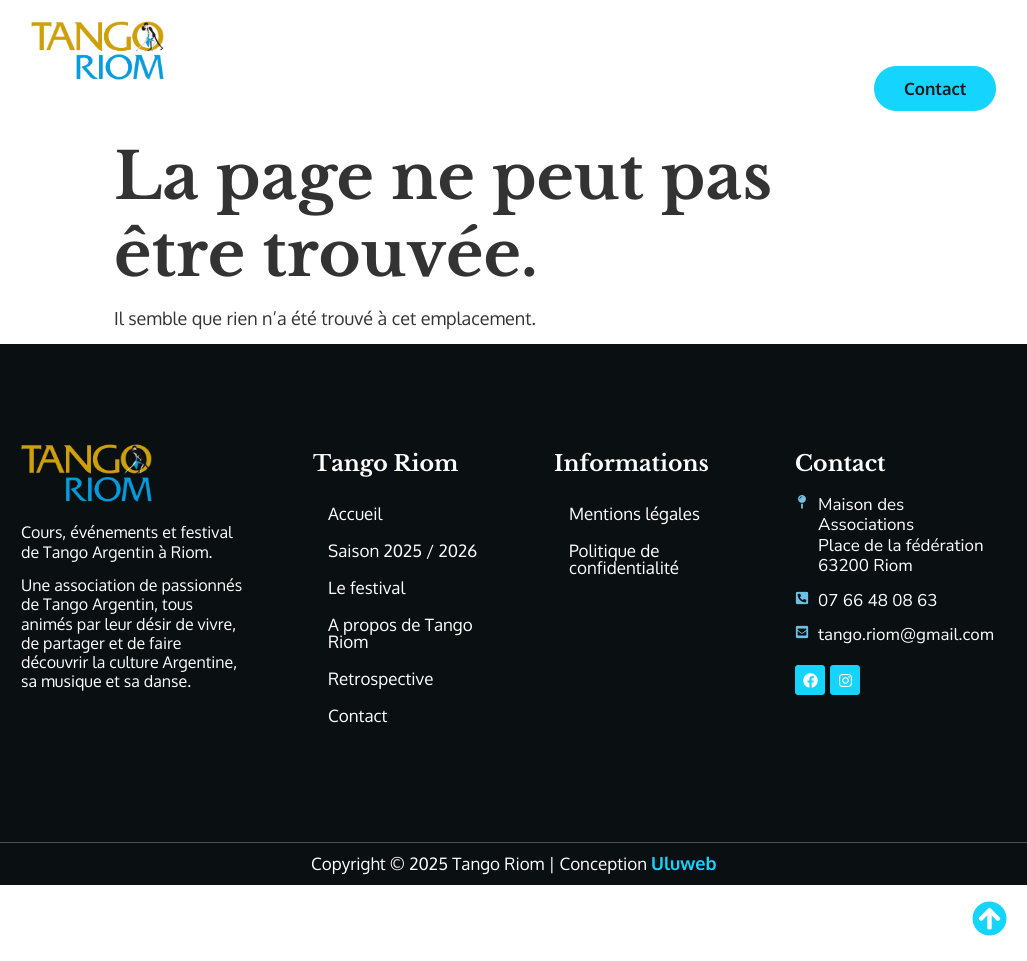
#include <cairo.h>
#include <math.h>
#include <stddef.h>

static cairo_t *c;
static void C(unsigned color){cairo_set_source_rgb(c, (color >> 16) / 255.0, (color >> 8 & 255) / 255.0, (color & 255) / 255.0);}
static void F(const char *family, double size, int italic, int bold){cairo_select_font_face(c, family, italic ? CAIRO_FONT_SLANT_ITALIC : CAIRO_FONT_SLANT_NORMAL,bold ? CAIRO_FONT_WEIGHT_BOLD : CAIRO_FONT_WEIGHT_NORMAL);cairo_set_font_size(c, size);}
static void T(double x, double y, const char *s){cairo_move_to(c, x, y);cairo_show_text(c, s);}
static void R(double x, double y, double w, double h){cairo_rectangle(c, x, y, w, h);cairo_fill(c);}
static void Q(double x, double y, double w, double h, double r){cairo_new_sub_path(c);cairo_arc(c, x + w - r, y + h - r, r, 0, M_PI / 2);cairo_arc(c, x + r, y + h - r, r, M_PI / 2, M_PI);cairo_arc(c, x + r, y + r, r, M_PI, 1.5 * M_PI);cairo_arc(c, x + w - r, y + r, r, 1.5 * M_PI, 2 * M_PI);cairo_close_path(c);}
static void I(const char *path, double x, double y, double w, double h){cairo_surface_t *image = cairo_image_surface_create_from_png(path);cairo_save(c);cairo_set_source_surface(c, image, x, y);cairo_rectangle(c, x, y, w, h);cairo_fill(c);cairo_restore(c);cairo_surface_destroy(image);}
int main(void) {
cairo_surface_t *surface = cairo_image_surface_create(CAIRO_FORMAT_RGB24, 1027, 961);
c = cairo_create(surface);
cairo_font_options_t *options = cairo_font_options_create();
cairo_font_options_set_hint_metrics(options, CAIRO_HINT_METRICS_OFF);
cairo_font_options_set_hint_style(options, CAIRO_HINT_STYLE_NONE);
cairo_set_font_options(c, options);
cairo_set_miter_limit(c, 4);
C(0xffffff);
cairo_paint(c);
I("1.png",31,21,133,59);
C(0x15d5fe);
Q(874,66,122,45,22.5);
cairo_fill(c);
F("Oxygen",17,0,1);
C(0x12181d);
T(904,95,"Contact");
F("Libre Baskerville",64,0,1);
C(0x333333);
T(114,199,"La page ne peut pas");
T(114,276,"être trouvée.");
F("Oxygen",18,0,0);
T(114,325,"Il semble que rien n’a été trouvé à cet emplacement.");
C(0x0a0f12);
R(0,344,1027,498);
I("2.png",21,444,131,58);
F("Oxygen",16,0,0);
C(0xffffff);
T(21,538,"Cours, événements et festival");
T(21,558,"de Tango Argentin à Riom.");
T(21,591,"Une association de passionnés");
T(21,610,"de Tango Argentin, tous");
T(21,630,"animés par leur désir de vivre,");
T(21,649,"de partager et de faire");
T(21,668,"découvrir la culture Argentine,");
T(21,687,"sa musique et sa danse.");
F("Libre Baskerville",22,0,1);
T(313,471,"Tango Riom");
F("Oxygen",17,0,0);
T(328,520,"Accueil");
T(328,557,"Saison 2025 / 2026");
T(328,594,"Le festival");
T(328,631,"A propos de Tango");
T(328,648,"Riom");
T(328,685,"Retrospective");
T(328,722,"Contact");
F("Libre Baskerville",22,0,1);
T(554,471,"Informations");
F("Oxygen",17,0,0);
T(569,520,"Mentions légales");
T(569,557,"Politique de");
T(569,574,"confidentialité");
F("Libre Baskerville",22,0,1);
T(795,471,"Contact");
I("3.png",798,495,8,14);
F("Nunito Sans",17,0,0);
T(818,510,"Maison des");
T(818,530,"Associations");
T(818,551,"Place de la fédération");
T(818,571,"63200 Riom");
I("4.png",795,591,14,14);
T(818,606,"07 66 48 08 63");
I("5.png",795,625,14,14);
T(818,640,"tango.riom@gmail.com");
C(0x15d5fe);
Q(795,665,30,30,3);
cairo_fill(c);
I("6.png",803,673,15,15);
Q(830,665,30,30,3);
cairo_fill(c);
I("7.png",839,674,14,13);
I("8.png",972,901,35,35);
C(0x0a0f12);
R(0,843,1027,42);
C(0x4c5052);
R(0,842,1027,1);
F("Oxygen",17,0,0);
C(0xffffff);
T(311,870,"Copyright © 2025 Tango Riom | Conception");
F("Oxygen",18,0,1);
C(0x15d5fe);
T(651,870,"Uluweb");
cairo_surface_write_to_png(surface, "o.png");
cairo_font_options_destroy(options);
cairo_destroy(c);
cairo_surface_destroy(surface);
return 0;
}
